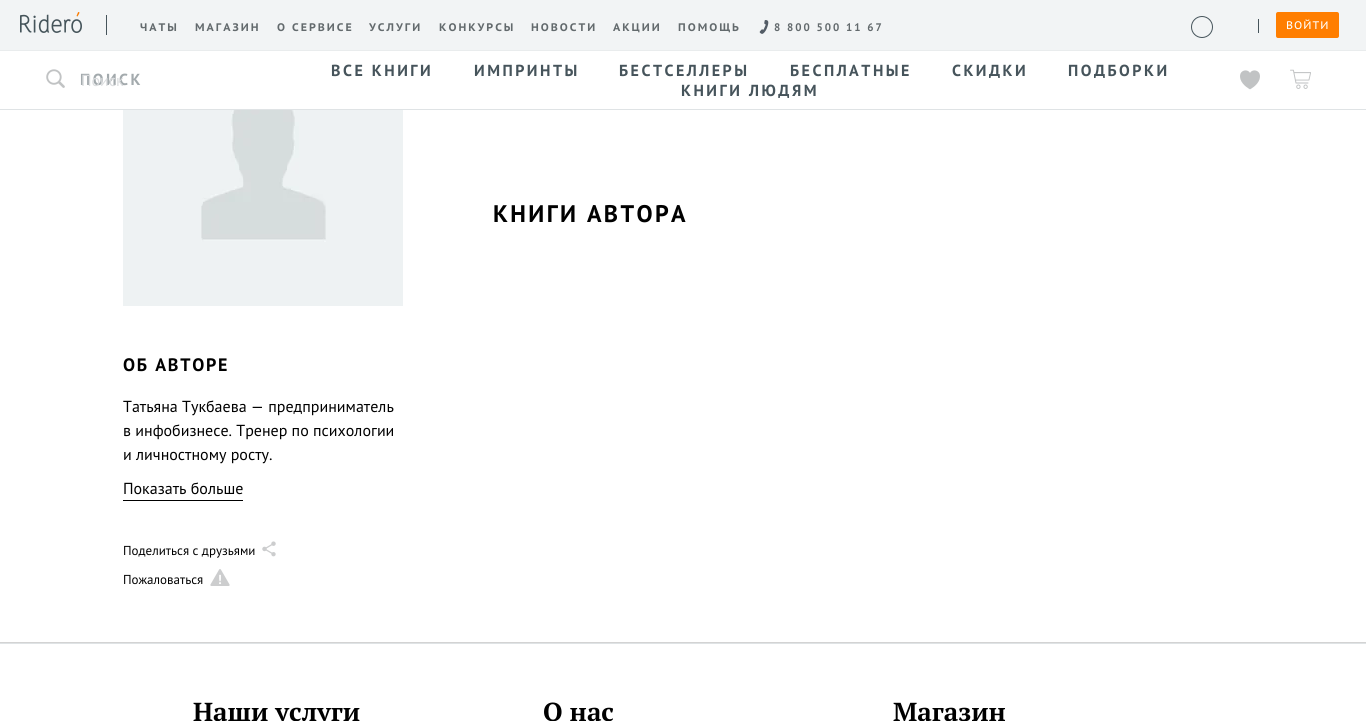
#include <cairo.h>
#include <math.h>
#include <stddef.h>

static cairo_t *c;
static void C(unsigned color){cairo_set_source_rgb(c, (color >> 16) / 255.0, (color >> 8 & 255) / 255.0, (color & 255) / 255.0);}
static void F(const char *family, double size, int italic, int bold){cairo_select_font_face(c, family, italic ? CAIRO_FONT_SLANT_ITALIC : CAIRO_FONT_SLANT_NORMAL,bold ? CAIRO_FONT_WEIGHT_BOLD : CAIRO_FONT_WEIGHT_NORMAL);cairo_set_font_size(c, size);}
static void T(double x, double y, const char *s){cairo_move_to(c, x, y);cairo_show_text(c, s);}
static void L(double x, double y, const char *s, double letter, double word){cairo_move_to(c, x, y);while (*s) {char ch[5] = {0};int n = 0;do ch[n++] = *s++; while ((*s & 0xC0) == 0x80);cairo_show_text(c, ch);cairo_rel_move_to(c, letter + word * (*ch == ' '), 0);}}
static void R(double x, double y, double w, double h){cairo_rectangle(c, x, y, w, h);cairo_fill(c);}
static void Q(double x, double y, double w, double h, double r){cairo_new_sub_path(c);cairo_arc(c, x + w - r, y + h - r, r, 0, M_PI / 2);cairo_arc(c, x + r, y + h - r, r, M_PI / 2, M_PI);cairo_arc(c, x + r, y + r, r, M_PI, 1.5 * M_PI);cairo_arc(c, x + w - r, y + r, r, 1.5 * M_PI, 2 * M_PI);cairo_close_path(c);}
static void I(const char *path, double x, double y, double w, double h){cairo_surface_t *image = cairo_image_surface_create_from_png(path);cairo_save(c);cairo_set_source_surface(c, image, x, y);cairo_rectangle(c, x, y, w, h);cairo_fill(c);cairo_restore(c);cairo_surface_destroy(image);}
int main(void) {
cairo_surface_t *surface = cairo_image_surface_create(CAIRO_FORMAT_RGB24, 1366, 721);
c = cairo_create(surface);
cairo_font_options_t *options = cairo_font_options_create();
cairo_font_options_set_hint_metrics(options, CAIRO_HINT_METRICS_OFF);
cairo_font_options_set_hint_style(options, CAIRO_HINT_STYLE_NONE);
cairo_set_font_options(c, options);
cairo_set_miter_limit(c, 4);
C(0xffffff);
cairo_paint(c);
C(0xe9eced);
R(0,50,1366,1);
C(0xf2f4f5);
R(0,0,1366,50);
I("1.png",20,12,62,21);
C(0x46545b);
R(106,15,1,20);
F("PT Sans Caption",11,0,1);
C(0x636a6d);
L(140,31,"ЧАТЫ",2,0);
L(195,31,"МАГАЗИН",2,0);
L(277,31,"О СЕРВИСЕ",2,0);
L(369,31,"УСЛУГИ",2,0);
L(439,31,"КОНКУРСЫ",2,0);
L(531,31,"НОВОСТИ",2,0);
L(613,31,"АКЦИИ",2,0);
L(678,31,"ПОМОЩЬ",2,0);
I("2.png",759,20,10,14);
F("PT Sans",11,0,1);
L(774,31,"8 800 500 11 67",2,0);
cairo_new_path(c);
cairo_arc(c,1202,27,10.5,0,2 * M_PI);
C(0x46545b);
cairo_set_line_width(c,1);
cairo_stroke(c);
R(1258,19,1,14);
C(0xff7e00);
Q(1276,12,63,26,2);
cairo_fill(c);
F("PT Sans Caption",11,0,0);
C(0xffffff);
L(1286,29,"ВОЙТИ",1,0);
C(0xdfe3e5);
R(0,109,1366,1);
I("3.png",46,69,19,19);
F("PT Sans",16,0,1);
C(0xa3aaad);
L(80,85,"ПОИСК",2.5,0);
F("PT Sans",16,0,0);
C(0xdbdddf);
T(81,86,"Поиск");
F("PT Sans",16,0,1);
C(0x46545b);
L(331,76,"ВСЕ КНИГИ",2.5,0);
L(474,76,"ИМПРИНТЫ",2.5,0);
L(619,76,"БЕСТСЕЛЛЕРЫ",2.5,0);
L(790,76,"БЕСПЛАТНЫЕ",2.5,0);
L(952,76,"СКИДКИ",2.5,0);
L(1068,76,"ПОДБОРКИ",2.5,0);
L(681,96,"КНИГИ ЛЮДЯМ",2.5,0);
I("4.png",1240,70,20,20);
I("5.png",1290,69,21,20);
C(0xd3d3d3);
R(0,642,1366,1);
F("PT Sans",24,0,1);
C(0x000000);
L(493,222,"КНИГИ АВТОРА",2.4,0);
C(0xeef2f3);
R(123,110,280,196);
I("6.png",201,110,125,132);
F("PT Sans",18,0,1);
C(0x000000);
L(123,371,"ОБ АВТОРЕ",1.75,0);
F("PT Sans",16,0,0);
T(123,412,"Татьяна Тукбаева — предприниматель");
T(123,436,"в инфобизнесе. Тренер по психологии");
T(123,460,"и личностному росту.");
R(123,500,120,1);
T(123,494,"Показать больше");
F("PT Sans",13,0,0);
T(123,555,"Поделиться с друзьями");
I("7.png",262,541,14,16);
T(123,584,"Пожаловаться");
I("8.png",210,569,20,17);
C(0xdfe3e5);
R(0,643,1366,1);
F("PT Serif",26,0,1);
C(0x000000);
T(193,721,"Наши услуги");
T(543,721,"О нас");
T(893,721,"Магазин");
cairo_surface_write_to_png(surface, "o.png");
cairo_font_options_destroy(options);
cairo_destroy(c);
cairo_surface_destroy(surface);
return 0;
}
